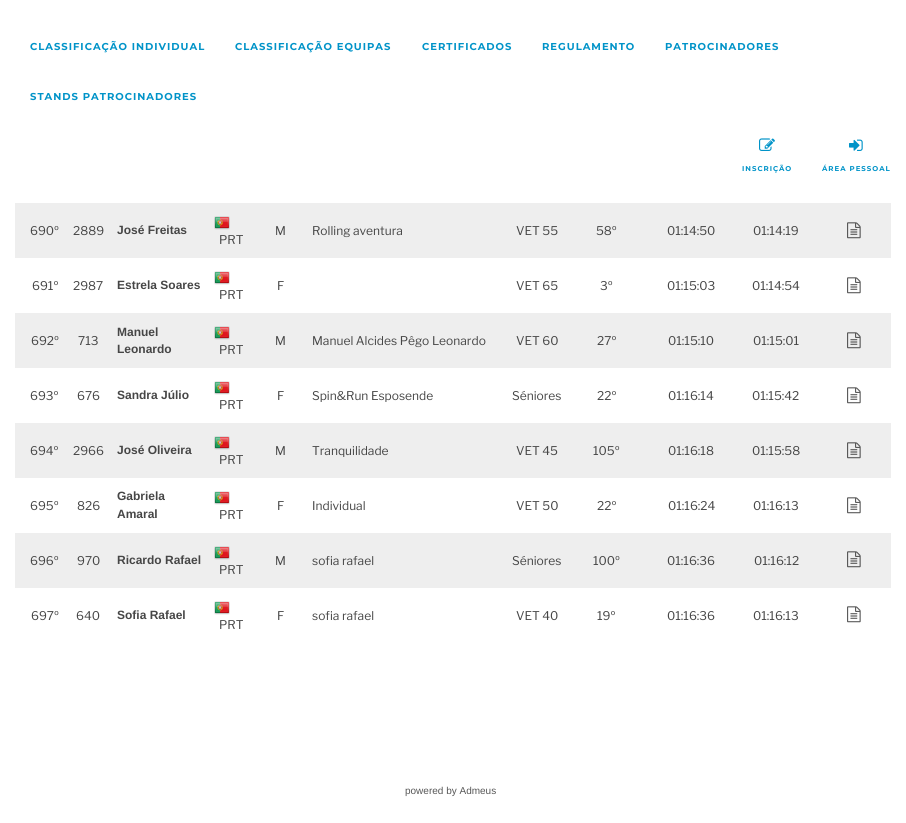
#include <cairo.h>
#include <math.h>
#include <stddef.h>

static cairo_t *c;
static void C(unsigned color){cairo_set_source_rgb(c, (color >> 16) / 255.0, (color >> 8 & 255) / 255.0, (color & 255) / 255.0);}
static void F(const char *family, double size, int italic, int bold){cairo_select_font_face(c, family, italic ? CAIRO_FONT_SLANT_ITALIC : CAIRO_FONT_SLANT_NORMAL,bold ? CAIRO_FONT_WEIGHT_BOLD : CAIRO_FONT_WEIGHT_NORMAL);cairo_set_font_size(c, size);}
static void T(double x, double y, const char *s){cairo_move_to(c, x, y);cairo_show_text(c, s);}
static void L(double x, double y, const char *s, double letter, double word){cairo_move_to(c, x, y);while (*s) {char ch[5] = {0};int n = 0;do ch[n++] = *s++; while ((*s & 0xC0) == 0x80);cairo_show_text(c, ch);cairo_rel_move_to(c, letter + word * (*ch == ' '), 0);}}
static void R(double x, double y, double w, double h){cairo_rectangle(c, x, y, w, h);cairo_fill(c);}
static void I(const char *path, double x, double y, double w, double h){cairo_surface_t *image = cairo_image_surface_create_from_png(path);cairo_save(c);cairo_set_source_surface(c, image, x, y);cairo_rectangle(c, x, y, w, h);cairo_fill(c);cairo_restore(c);cairo_surface_destroy(image);}
int main(void) {
cairo_surface_t *surface = cairo_image_surface_create(CAIRO_FORMAT_RGB24, 906, 823);
c = cairo_create(surface);
cairo_font_options_t *options = cairo_font_options_create();
cairo_font_options_set_hint_metrics(options, CAIRO_HINT_METRICS_OFF);
cairo_font_options_set_hint_style(options, CAIRO_HINT_STYLE_NONE);
cairo_set_font_options(c, options);
cairo_set_miter_limit(c, 4);
C(0xffffff);
cairo_paint(c);
F("Montserrat",10,0,1);
C(0x0093c8);
L(30,50,"CLASSIFICAÇÃO INDIVIDUAL",1,0);
L(235,50,"CLASSIFICAÇÃO EQUIPAS",1,0);
L(422,50,"CERTIFICADOS",1,0);
L(542,50,"REGULAMENTO",1,0);
L(665,50,"PATROCINADORES",1,0);
L(30,100,"STANDS PATROCINADORES",1,0);
I("1.png",759,138,16,13);
F("Montserrat",7,0,1);
L(742,171,"INSCRIÇÃO",1,0);
I("2.png",849,139,14,12);
L(822,171,"ÁREA PESSOAL",1,0);
C(0xeeeeee);
R(15,203,876,55);
F("Libre Franklin",12,0,0);
C(0x464646);
T(30,235,"690º");
T(73,235,"2889");
F("Liberation Sans",12,0,1);
T(117,234,"José Freitas");
F("Libre Franklin",12,0,0);
T(275,235,"M");
T(312,235,"Rolling aventura");
T(516,235,"VET 55");
T(596,235,"58º");
T(667,235,"01:14:50");
T(753,235,"01:14:19");
I("3.png",847,222,14,17);
I("4.png",214,216,16,14);
T(219,244,"PRT");
T(32,290,"691º");
T(73,290,"2987");
F("Liberation Sans",12,0,1);
T(117,289,"Estrela Soares");
F("Libre Franklin",12,0,0);
T(277,290,"F");
T(516,290,"VET 65");
T(600,290,"3º");
T(667,290,"01:15:03");
T(752,290,"01:14:54");
I("5.png",847,277,14,17);
I("6.png",214,271,16,14);
T(219,299,"PRT");
C(0xeeeeee);
R(15,313,876,55);
C(0x464646);
T(31,345,"692º");
T(78,345,"713");
F("Liberation Sans",12,0,1);
T(117,336,"Manuel");
T(117,353,"Leonardo");
F("Libre Franklin",12,0,0);
T(275,345,"M");
T(312,345,"Manuel Alcides Pêgo Leonardo");
T(516,345,"VET 60");
T(597,345,"27º");
T(668,345,"01:15:10");
T(753,345,"01:15:01");
I("3.png",847,332,14,17);
I("4.png",214,326,16,14);
T(219,354,"PRT");
T(30,400,"693º");
T(77,400,"676");
F("Liberation Sans",12,0,1);
T(117,399,"Sandra Júlio");
F("Libre Franklin",12,0,0);
T(277,400,"F");
T(312,400,"Spin&Run Esposende");
T(512,400,"Séniores");
T(597,400,"22º");
T(668,400,"01:16:14");
T(752,400,"01:15:42");
I("5.png",847,387,14,17);
I("6.png",214,381,16,14);
T(219,409,"PRT");
C(0xeeeeee);
R(15,423,876,55);
C(0x464646);
T(30,455,"694º");
T(73,455,"2966");
F("Liberation Sans",12,0,1);
T(117,454,"José Oliveira");
F("Libre Franklin",12,0,0);
T(275,455,"M");
T(312,455,"Tranquilidade");
T(516,455,"VET 45");
T(593,455,"105º");
T(668,455,"01:16:18");
T(752,455,"01:15:58");
I("3.png",847,442,14,17);
I("4.png",214,436,16,14);
T(219,464,"PRT");
T(30,510,"695º");
T(77,510,"826");
F("Liberation Sans",12,0,1);
T(117,500,"Gabriela");
T(117,518,"Amaral");
F("Libre Franklin",12,0,0);
T(277,510,"F");
T(312,510,"Individual");
T(516,510,"VET 50");
T(597,510,"22º");
T(668,510,"01:16:24");
T(753,510,"01:16:13");
I("5.png",847,497,14,17);
I("6.png",214,491,16,14);
T(219,519,"PRT");
C(0xeeeeee);
R(15,533,876,55);
C(0x464646);
T(30,565,"696º");
T(77,565,"970");
F("Liberation Sans",12,0,1);
T(117,564,"Ricardo Rafael");
F("Libre Franklin",12,0,0);
T(275,565,"M");
T(312,565,"sofia rafael");
T(512,565,"Séniores");
T(593,565,"100º");
T(667,565,"01:16:36");
T(754,565,"01:16:12");
I("3.png",847,551,14,17);
I("4.png",214,546,16,14);
T(219,574,"PRT");
T(31,620,"697º");
T(76,620,"640");
F("Liberation Sans",12,0,1);
T(117,619,"Sofia Rafael");
F("Libre Franklin",12,0,0);
T(277,620,"F");
T(312,620,"sofia rafael");
T(516,620,"VET 40");
T(597,620,"19º");
T(667,620,"01:16:36");
T(753,620,"01:16:13");
I("5.png",847,606,14,17);
I("6.png",214,601,16,14);
T(219,629,"PRT");
F("Liberation Sans",10,0,0);
C(0x575757);
T(405,794,"powered by Admeus");
cairo_surface_write_to_png(surface, "o.png");
cairo_font_options_destroy(options);
cairo_destroy(c);
cairo_surface_destroy(surface);
return 0;
}
